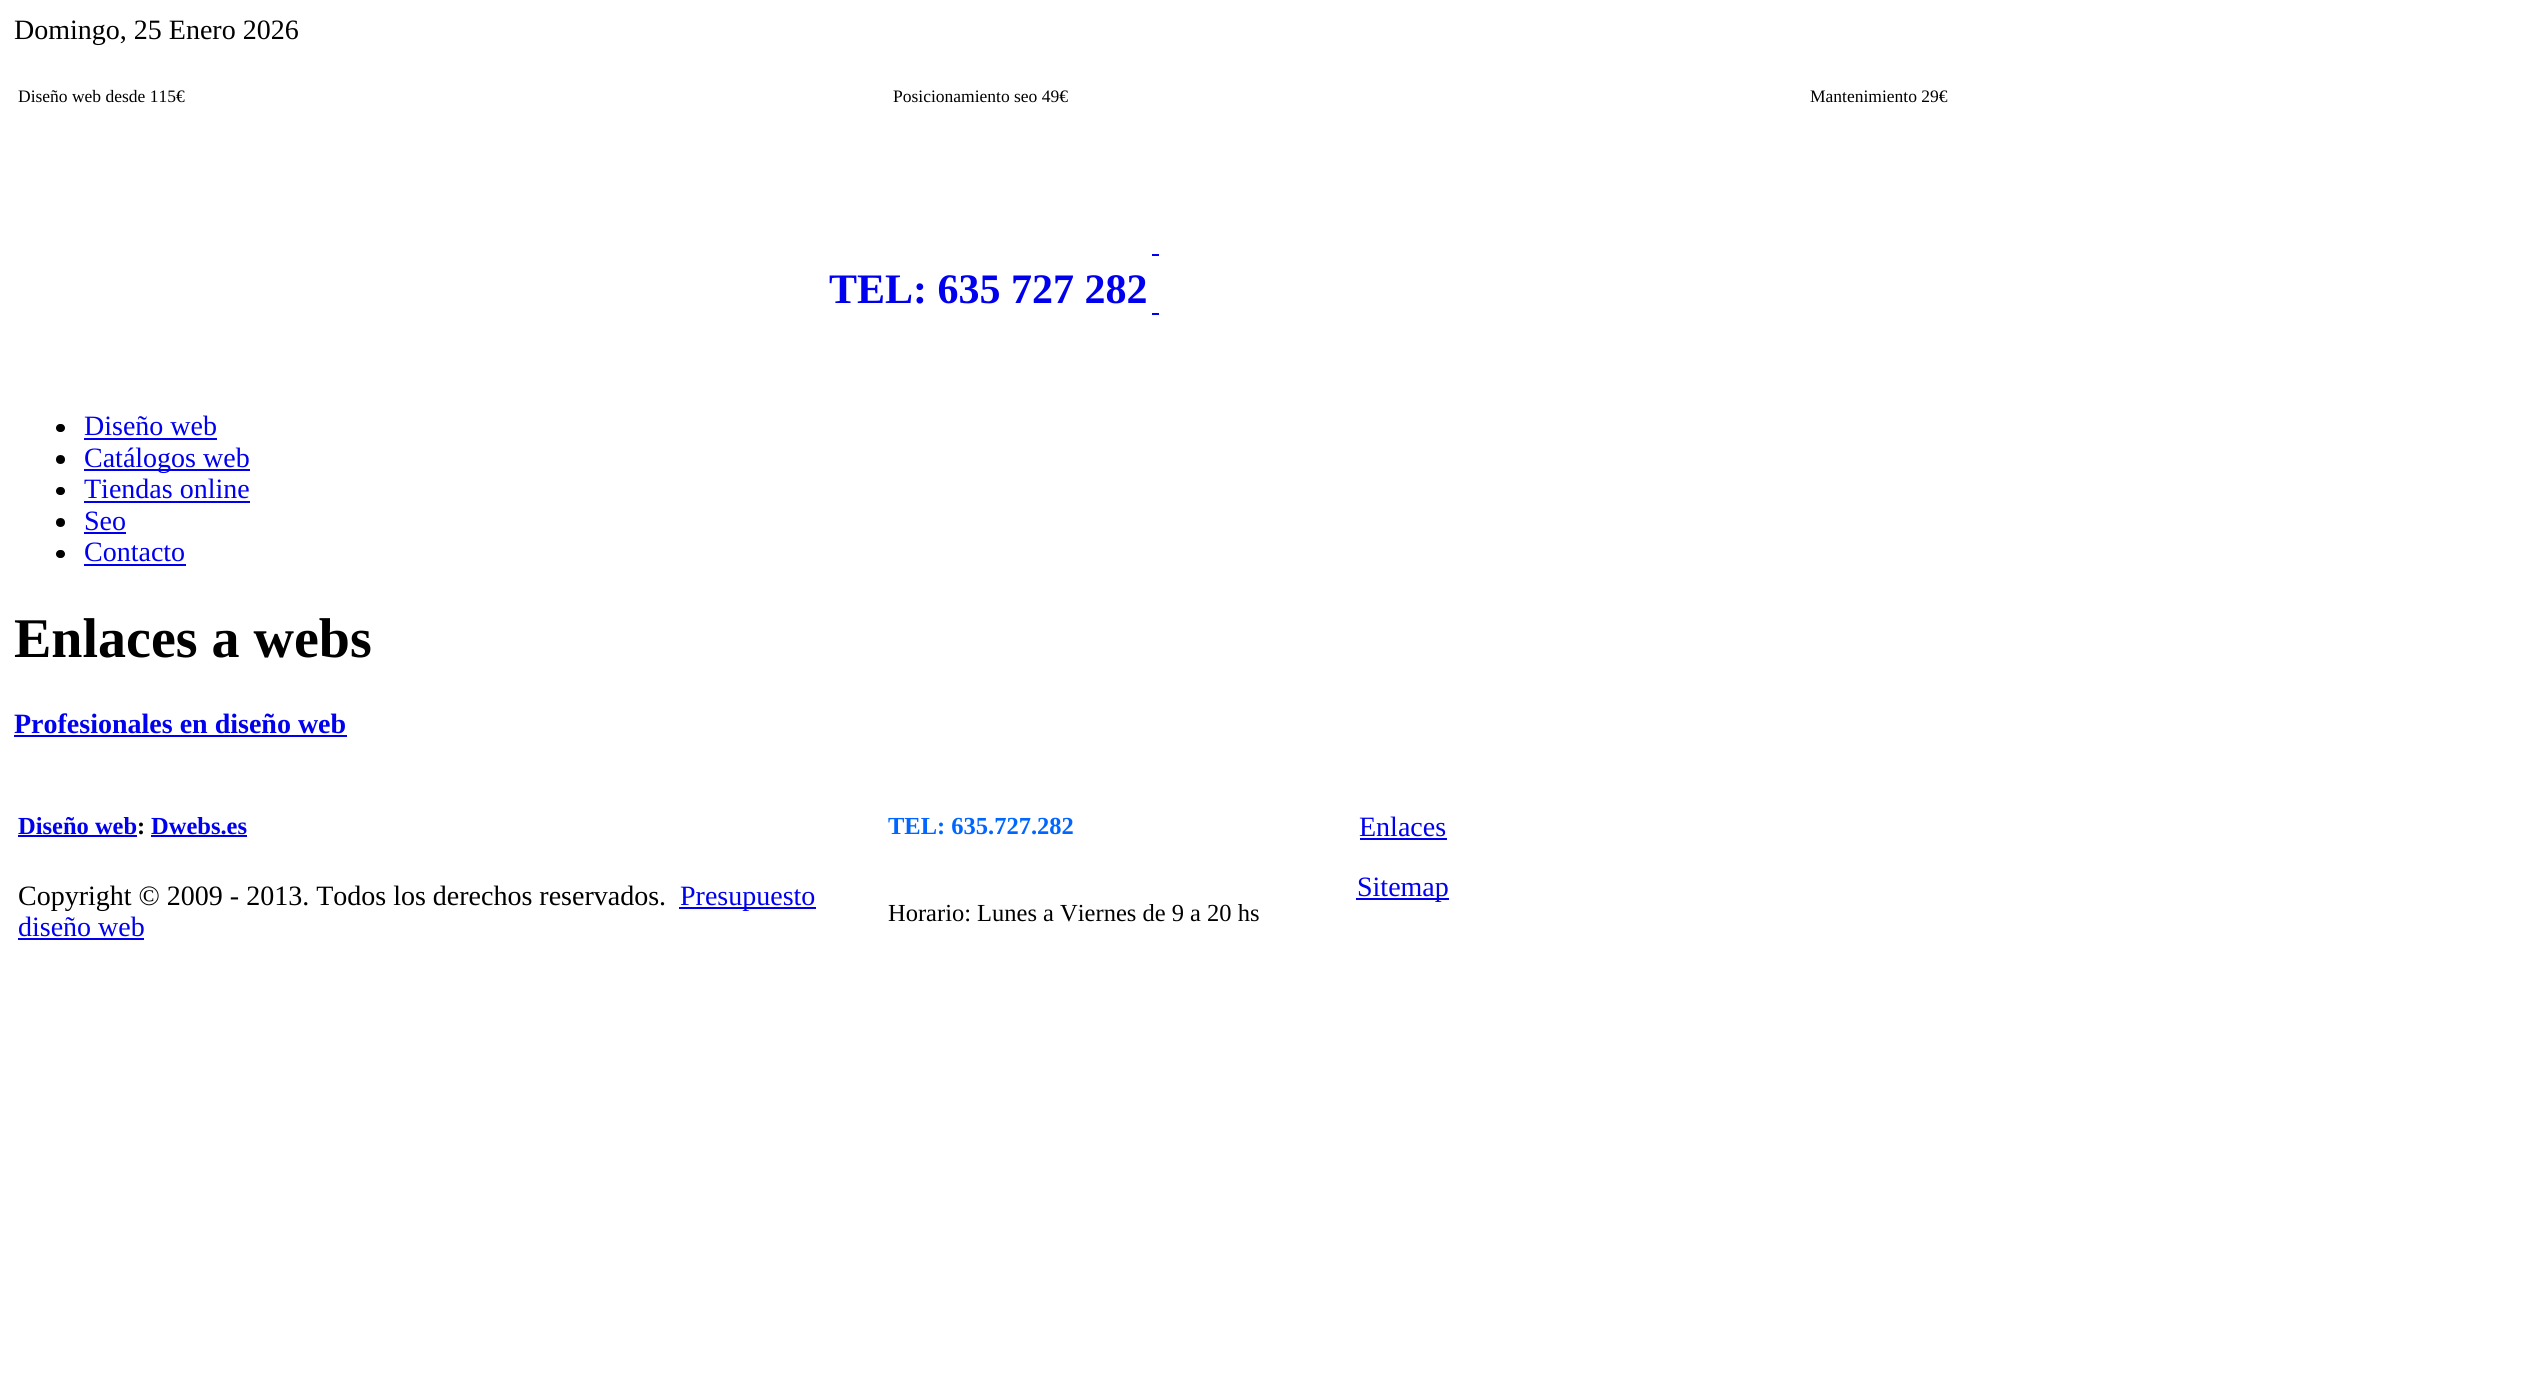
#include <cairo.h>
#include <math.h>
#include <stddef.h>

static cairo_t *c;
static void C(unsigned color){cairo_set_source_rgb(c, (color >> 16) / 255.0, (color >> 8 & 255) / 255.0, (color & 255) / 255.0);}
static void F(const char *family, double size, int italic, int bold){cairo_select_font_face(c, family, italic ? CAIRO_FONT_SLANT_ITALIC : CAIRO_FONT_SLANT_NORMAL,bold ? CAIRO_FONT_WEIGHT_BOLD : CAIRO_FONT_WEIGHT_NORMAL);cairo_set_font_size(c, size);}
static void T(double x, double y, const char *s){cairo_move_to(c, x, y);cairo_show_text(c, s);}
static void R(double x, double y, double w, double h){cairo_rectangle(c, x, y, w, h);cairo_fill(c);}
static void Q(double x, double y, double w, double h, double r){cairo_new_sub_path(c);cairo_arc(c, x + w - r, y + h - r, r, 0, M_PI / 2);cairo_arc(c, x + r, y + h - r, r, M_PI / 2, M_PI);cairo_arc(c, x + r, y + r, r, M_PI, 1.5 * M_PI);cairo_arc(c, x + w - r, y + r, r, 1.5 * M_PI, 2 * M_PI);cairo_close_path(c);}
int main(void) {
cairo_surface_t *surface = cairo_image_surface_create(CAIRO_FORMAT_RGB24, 2547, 1383);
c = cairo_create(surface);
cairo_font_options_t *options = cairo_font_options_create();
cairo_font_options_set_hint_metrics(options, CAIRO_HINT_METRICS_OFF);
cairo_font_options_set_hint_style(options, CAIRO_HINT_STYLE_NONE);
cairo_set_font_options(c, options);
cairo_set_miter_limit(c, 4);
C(0xffffff);
cairo_paint(c);
F("Liberation Serif",28,0,0);
C(0x000000);
T(14,39,"Domingo, 25 Enero 2026");
F("Liberation Serif",17.5,0,0);
T(18,102,"Diseño web desde 115€");
T(893,102,"Posicionamiento seo 49€");
T(1810,102,"Mantenimiento 29€");
C(0x0000ee);
R(1152,254,7,2);
F("Liberation Serif",42,0,1);
T(829,303,"TEL: 635 727 282");
R(1152,313,7,2);
C(0x000000);
Q(56,424,9,8,4);
cairo_fill(c);
F("Liberation Serif",28,0,0);
C(0x0000ee);
T(84,435,"Diseño web");
R(84,438,133,2);
C(0x000000);
cairo_new_path(c);
cairo_arc(c,60.5,459.5,4.5,0,2 * M_PI);
cairo_fill(c);
C(0x0000ee);
R(84,469,166,2);
T(84,467,"Catálogos web");
C(0x000000);
Q(56,487,9,8,4);
cairo_fill(c);
C(0x0000ee);
T(84,498,"Tiendas online");
R(84,501,166,2);
C(0x000000);
cairo_new_path(c);
cairo_arc(c,60.5,522.5,4.5,0,2 * M_PI);
cairo_fill(c);
C(0x0000ee);
T(84,530,"Seo");
R(84,532,42,2);
C(0x000000);
Q(56,550,9,8,4);
cairo_fill(c);
C(0x0000ee);
T(84,561,"Contacto");
R(84,564,102,2);
F("Liberation Serif",56,0,1);
C(0x000000);
T(14,657,"Enlaces a webs");
F("Liberation Serif",28,0,1);
C(0x0000ee);
T(14,733,"Profesionales en diseño web");
R(14,735,333,2);
F("Liberation Serif",24.5,0,1);
T(18,834,"Diseño web");
C(0x000000);
T(137,834,":");
C(0x0000ee);
R(18,835,119,2);
T(151,834,"Dwebs.es");
R(151,835,96,2);
C(0x0066ff);
T(888,834,"TEL: 635.727.282");
F("Liberation Serif",28,0,0);
C(0x0000ee);
T(1359,836,"Enlaces");
R(1360,838,87,2);
R(1356,898,93,2);
T(1357,896,"Sitemap");
C(0x000000);
T(18,905,"Copyright © 2009 - 2013. Todos los derechos reservados.");
C(0x0000ee);
R(679,907,137,2);
T(680,905,"Presupuesto");
T(18,936,"diseño web");
R(18,938,126,2);
F("Liberation Serif",24.5,0,0);
C(0x000000);
T(888,921,"Horario: Lunes a Viernes de 9 a 20 hs");
cairo_surface_write_to_png(surface, "o.png");
cairo_font_options_destroy(options);
cairo_destroy(c);
cairo_surface_destroy(surface);
return 0;
}
